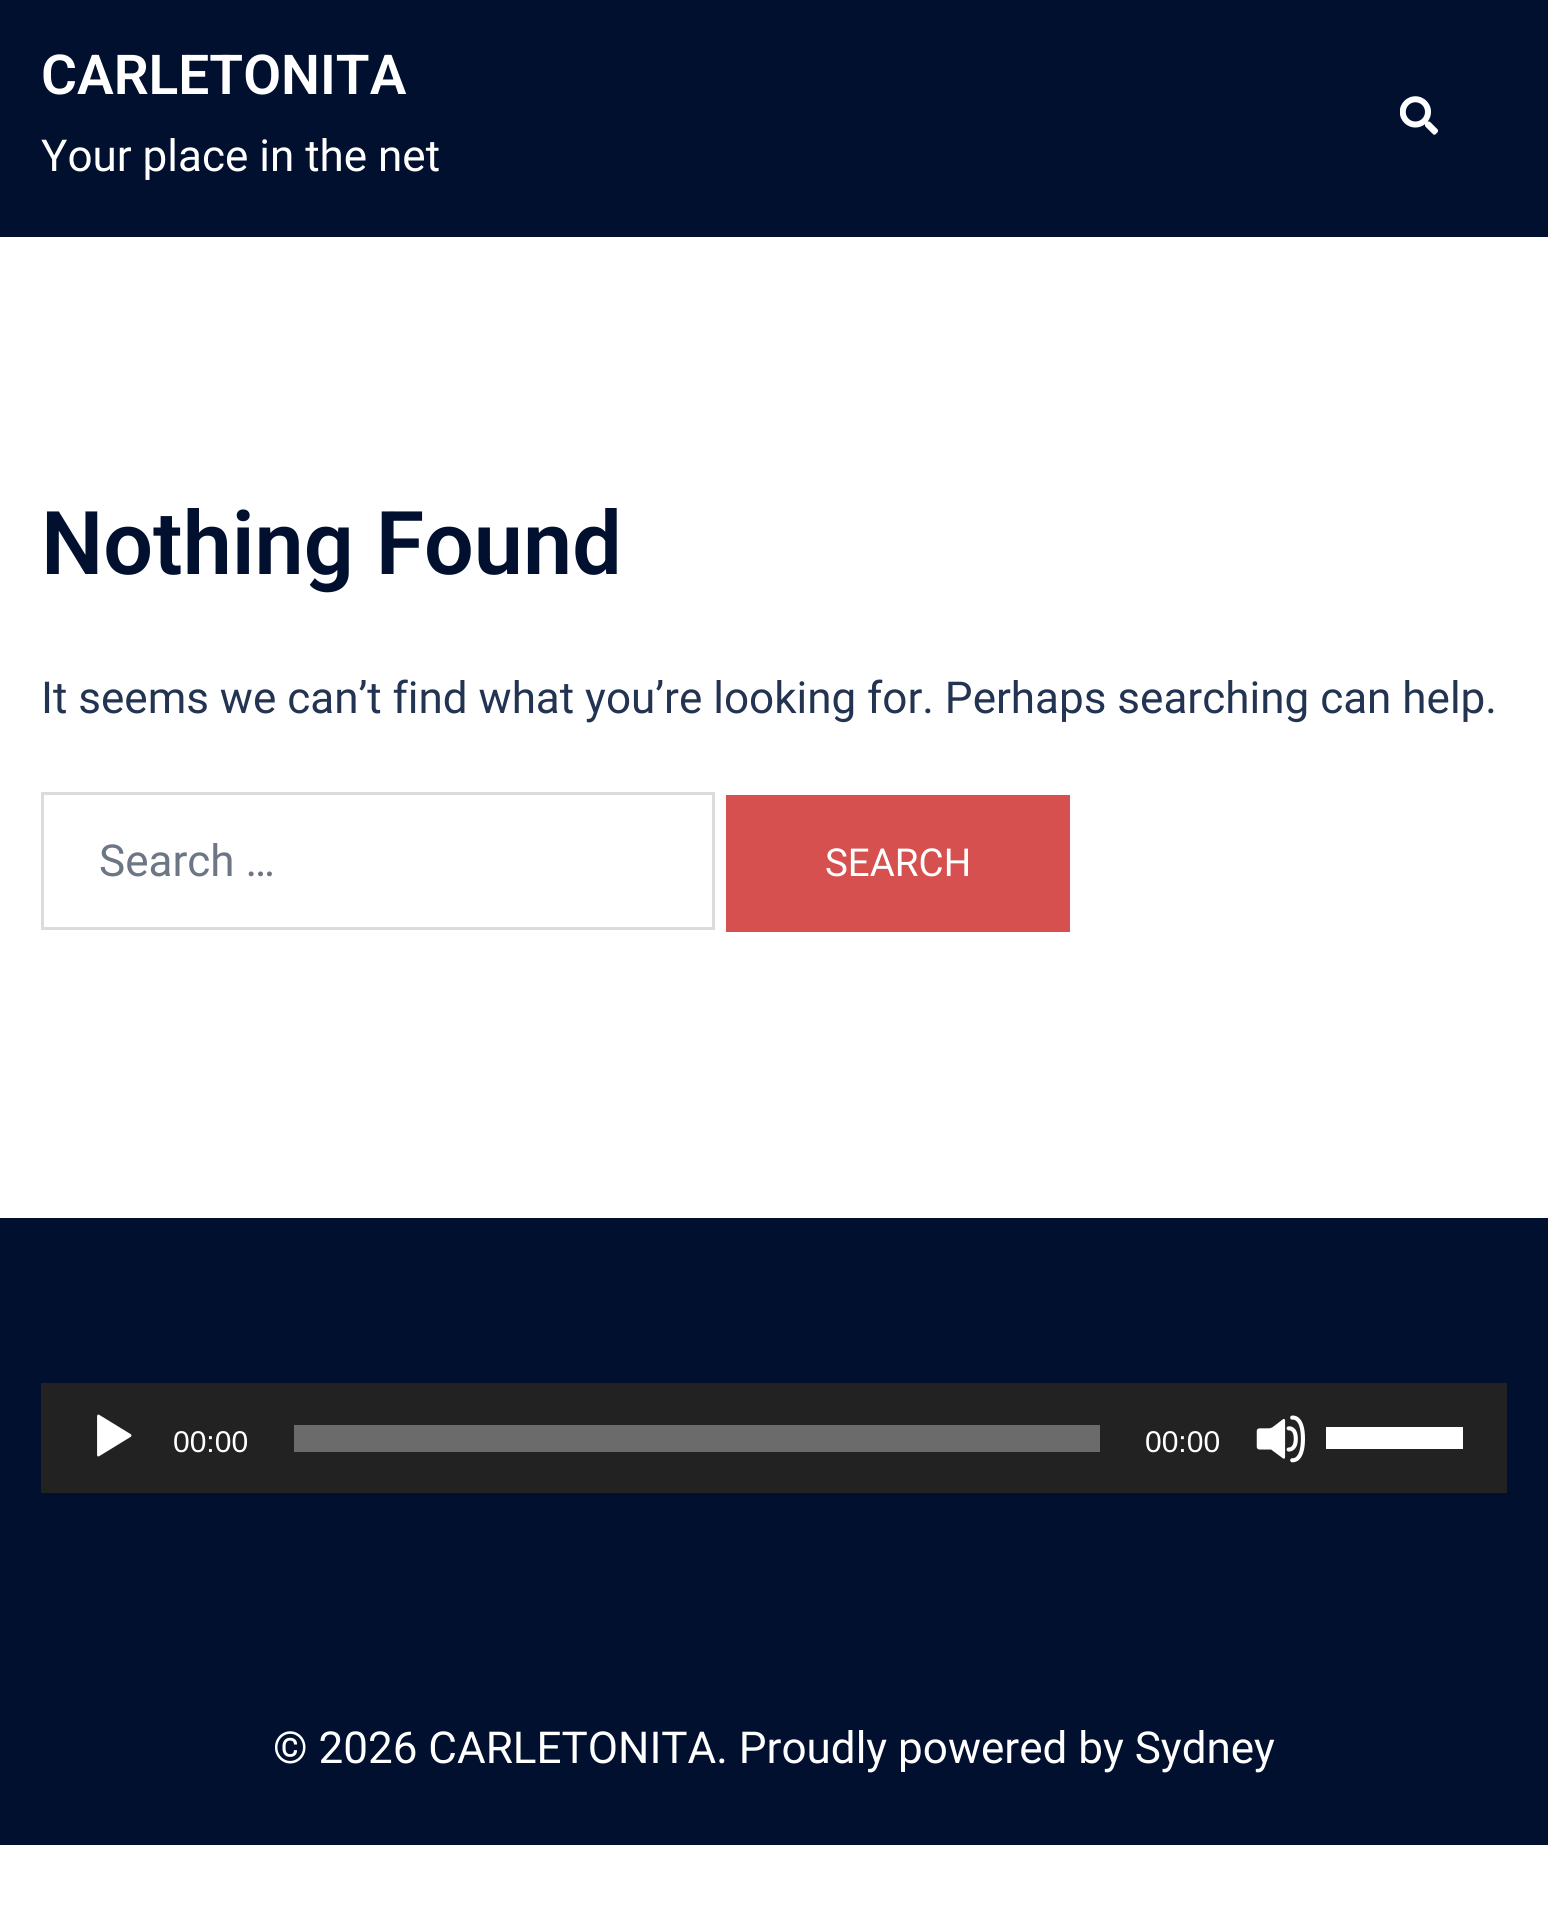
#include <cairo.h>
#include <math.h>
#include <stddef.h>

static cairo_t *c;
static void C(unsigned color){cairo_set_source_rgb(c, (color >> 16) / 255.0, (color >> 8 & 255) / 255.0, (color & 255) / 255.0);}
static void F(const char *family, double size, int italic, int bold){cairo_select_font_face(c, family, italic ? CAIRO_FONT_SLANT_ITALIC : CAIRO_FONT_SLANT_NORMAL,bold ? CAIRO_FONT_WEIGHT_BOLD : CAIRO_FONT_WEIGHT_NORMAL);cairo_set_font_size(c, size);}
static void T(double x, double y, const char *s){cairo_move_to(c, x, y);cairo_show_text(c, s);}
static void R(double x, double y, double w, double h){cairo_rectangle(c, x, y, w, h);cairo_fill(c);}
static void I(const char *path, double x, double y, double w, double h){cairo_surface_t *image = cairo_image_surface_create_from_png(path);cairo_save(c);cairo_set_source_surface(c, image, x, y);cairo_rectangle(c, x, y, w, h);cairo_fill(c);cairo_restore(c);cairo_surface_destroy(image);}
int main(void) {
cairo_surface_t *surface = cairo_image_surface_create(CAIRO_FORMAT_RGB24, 1548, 1919);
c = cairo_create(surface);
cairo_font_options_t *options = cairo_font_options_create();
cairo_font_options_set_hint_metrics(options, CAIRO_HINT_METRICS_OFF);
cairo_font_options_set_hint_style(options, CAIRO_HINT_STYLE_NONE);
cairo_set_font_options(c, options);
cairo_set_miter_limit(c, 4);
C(0xffffff);
cairo_paint(c);
C(0x00102e);
R(0,0,1548,237);
F("Roboto SemiBold",55,0,0);
C(0xffffff);
T(41,94,"CARLETONITA");
F("Roboto",44,0,0);
T(41,171,"Your place in the net");
I("1.png",1400,96,38,39);
F("Roboto SemiBold",88,0,0);
C(0x00102e);
T(41,574,"Nothing Found");
F("Roboto",44,0,0);
C(0x233452);
T(41,713,"It seems we can’t find what you’re looking for. Perhaps searching can help.");
cairo_rectangle(c,42.5,793.5,671,135);
C(0xdbdbdb);
cairo_set_line_width(c,3);
cairo_stroke(c);
C(0x6d7685);
T(99,876,"Search …");
C(0xd65050);
R(726,795,344,137);
F("Roboto",38.5,0,0);
C(0xffffff);
T(825,876,"SEARCH");
C(0x00102e);
R(0,1218,1548,627);
C(0x222222);
R(41,1383,1466,110);
I("2.png",97,1414,35,43);
F("Liberation Sans",30,0,0);
C(0xffffff);
T(173,1452,"00:00");
C(0x6b6b6b);
R(294,1425,806,27);
C(0xffffff);
T(1145,1452,"00:00");
I("3.png",1256,1415,49,48);
R(1326,1427,137,22);
F("Roboto",44,0,0);
T(273,1763,"© 2026 CARLETONITA. Proudly powered by Sydney");
cairo_surface_write_to_png(surface, "o.png");
cairo_font_options_destroy(options);
cairo_destroy(c);
cairo_surface_destroy(surface);
return 0;
}
